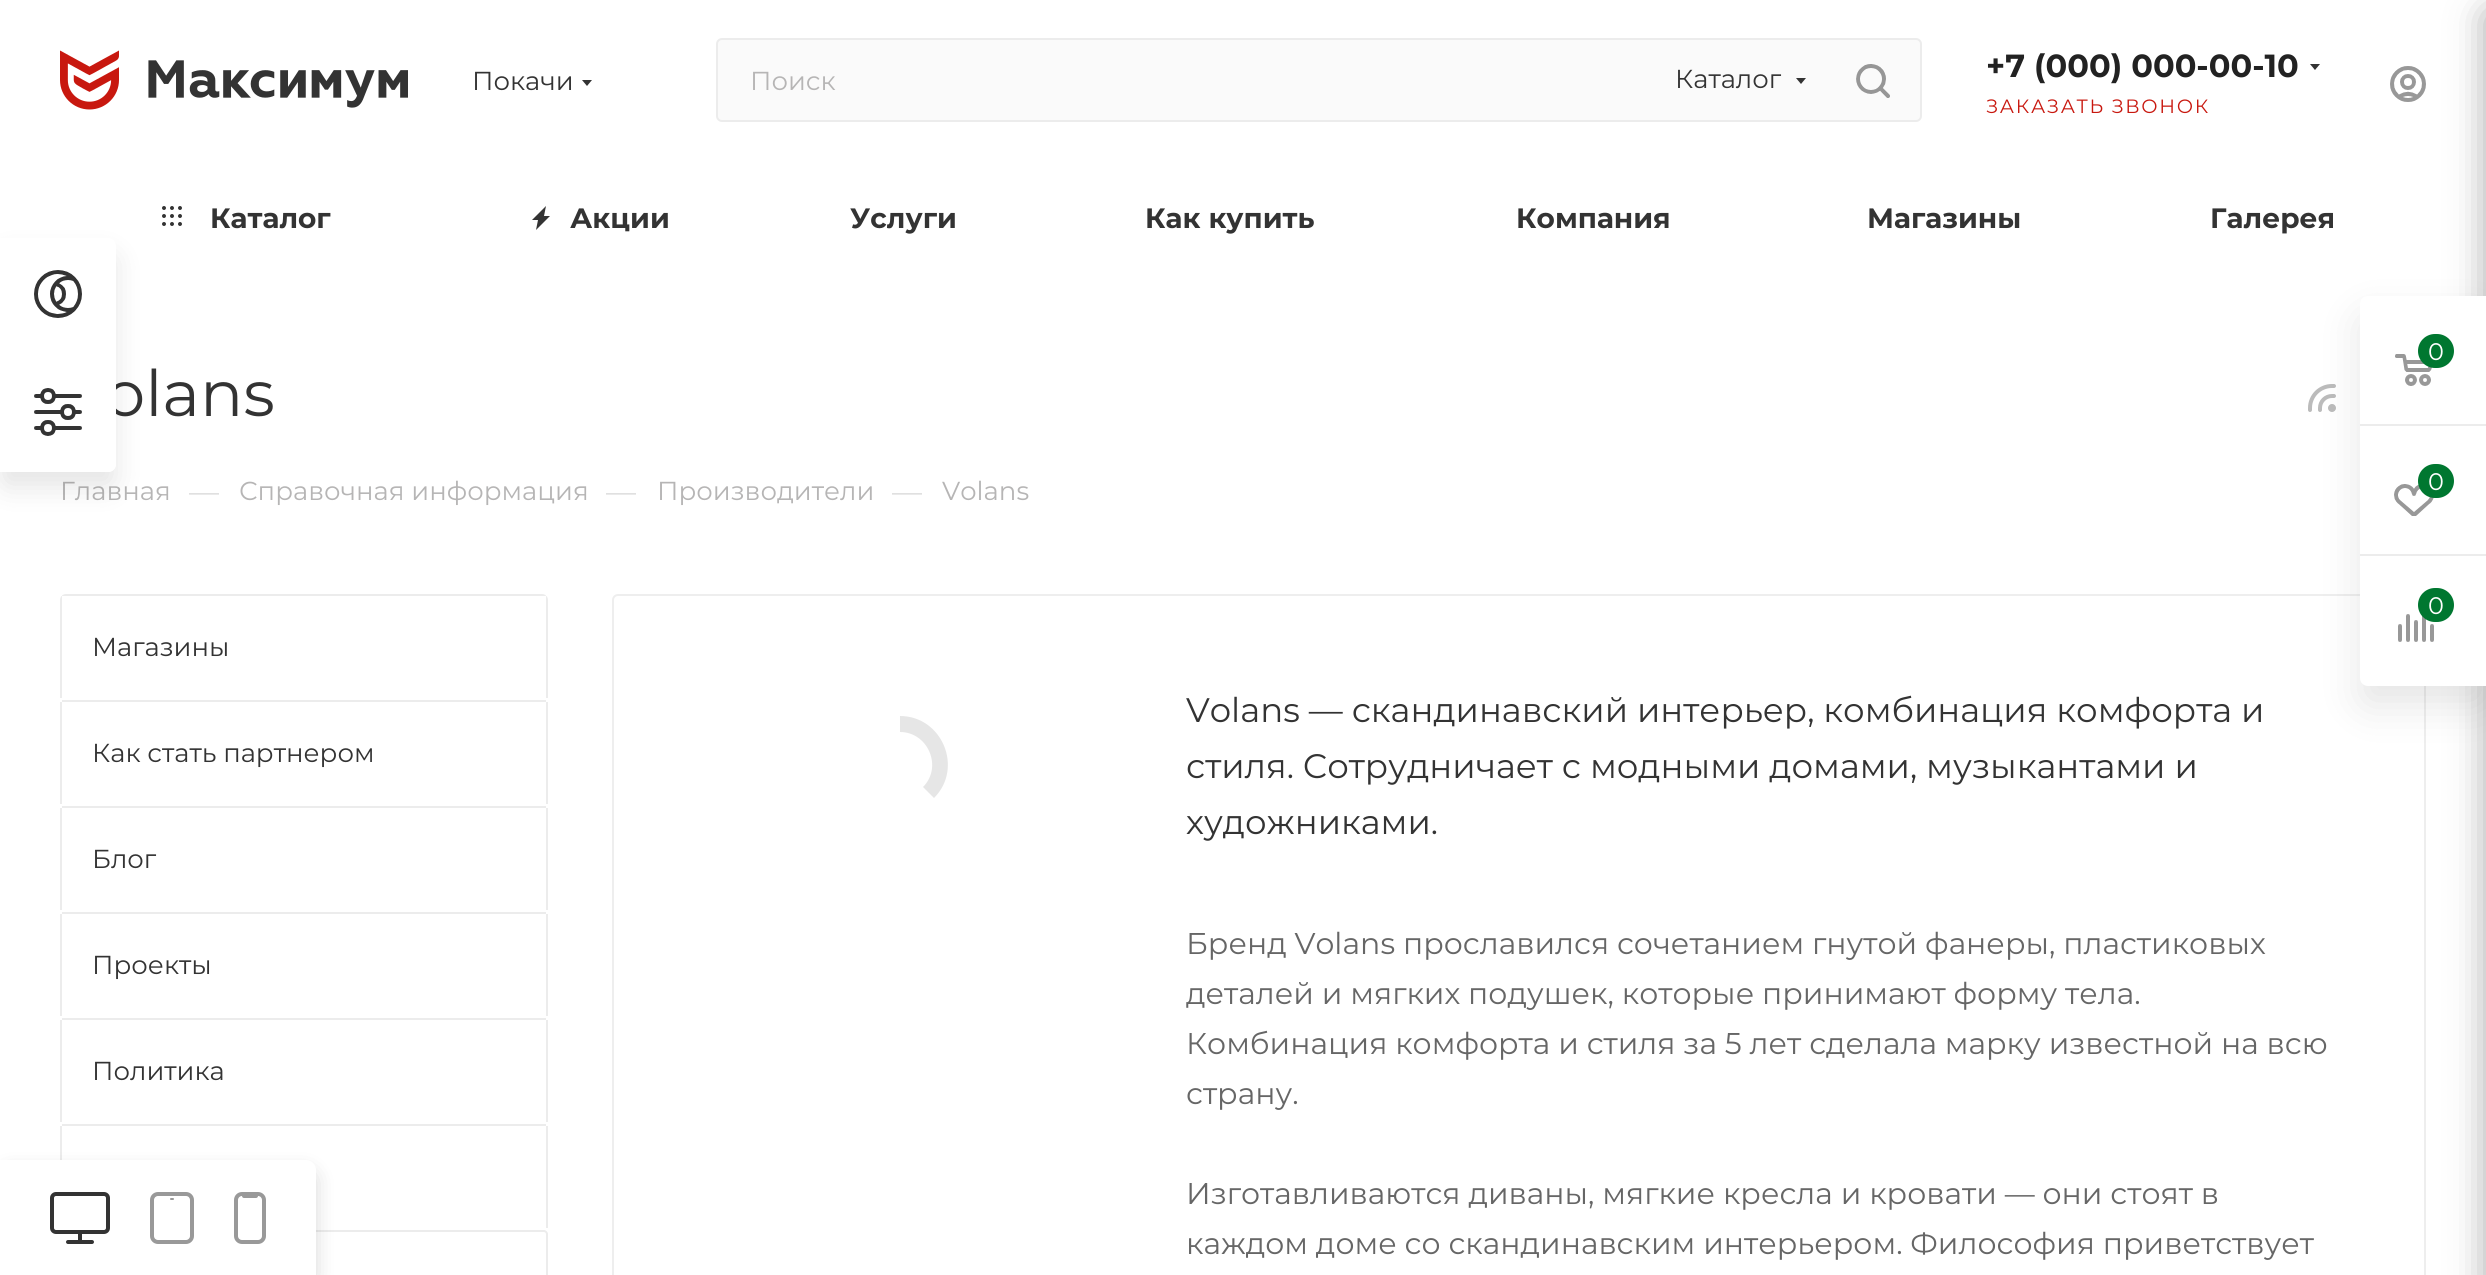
#include <cairo.h>
#include <math.h>
#include <stddef.h>

static cairo_t *c;
static void C(unsigned color){cairo_set_source_rgb(c, (color >> 16) / 255.0, (color >> 8 & 255) / 255.0, (color & 255) / 255.0);}
static void F(const char *family, double size, int italic, int bold){cairo_select_font_face(c, family, italic ? CAIRO_FONT_SLANT_ITALIC : CAIRO_FONT_SLANT_NORMAL,bold ? CAIRO_FONT_WEIGHT_BOLD : CAIRO_FONT_WEIGHT_NORMAL);cairo_set_font_size(c, size);}
static void T(double x, double y, const char *s){cairo_move_to(c, x, y);cairo_show_text(c, s);}
static void L(double x, double y, const char *s, double letter, double word){cairo_move_to(c, x, y);while (*s) {char ch[5] = {0};int n = 0;do ch[n++] = *s++; while ((*s & 0xC0) == 0x80);cairo_show_text(c, ch);cairo_rel_move_to(c, letter + word * (*ch == ' '), 0);}}
static void R(double x, double y, double w, double h){cairo_rectangle(c, x, y, w, h);cairo_fill(c);}
static void Q(double x, double y, double w, double h, double r){cairo_new_sub_path(c);cairo_arc(c, x + w - r, y + h - r, r, 0, M_PI / 2);cairo_arc(c, x + r, y + h - r, r, M_PI / 2, M_PI);cairo_arc(c, x + r, y + r, r, M_PI, 1.5 * M_PI);cairo_arc(c, x + w - r, y + r, r, 1.5 * M_PI, 2 * M_PI);cairo_close_path(c);}
static void S(double x, double y, double w, double h, double r, double blur, double alpha){cairo_push_group_with_content(c, CAIRO_CONTENT_ALPHA);cairo_set_operator(c, CAIRO_OPERATOR_SOURCE);for (int i = 15; i >= -15 && fmin(w, h) + blur * i / 3 > 0; i -= 2) {double e = blur * i / 6;cairo_set_source_rgba(c, 0, 0, 0, alpha * erfc((i - 1) / 8.5) / 2);Q(x - e, y - e, w + 2 * e, h + 2 * e, fmax(0, fmin(r + e + blur * .6, fmin(w, h) / 2 + e)));cairo_fill(c);}cairo_pattern_t *soft = cairo_pop_group(c);cairo_mask(c, soft);cairo_pattern_destroy(soft);}
static void I(const char *path, double x, double y, double w, double h){cairo_surface_t *image = cairo_image_surface_create_from_png(path);cairo_save(c);cairo_set_source_surface(c, image, x, y);cairo_rectangle(c, x, y, w, h);cairo_fill(c);cairo_restore(c);cairo_surface_destroy(image);}
int main(void) {
cairo_surface_t *surface = cairo_image_surface_create(CAIRO_FORMAT_RGB24, 2486, 1275);
c = cairo_create(surface);
cairo_font_options_t *options = cairo_font_options_create();
cairo_font_options_set_hint_metrics(options, CAIRO_HINT_METRICS_OFF);
cairo_font_options_set_hint_style(options, CAIRO_HINT_STYLE_NONE);
cairo_set_font_options(c, options);
cairo_set_miter_limit(c, 4);
C(0xffffff);
cairo_paint(c);
I("1.png",60,50,348,60);
F("Montserrat",26,0,0);
C(0x333333);
T(472,90,"Покачи");
cairo_set_fill_rule(c,CAIRO_FILL_RULE_EVEN_ODD);
cairo_new_path(c);
cairo_move_to(c,582,80);
cairo_line_to(c,592,80);
cairo_line_to(c,587,86);
cairo_close_path(c);
cairo_fill(c);
C(0xfafafa);
Q(717,39,1204,82,5);
cairo_fill_preserve(c);
C(0xececec);
cairo_stroke(c);
C(0xb6b5b5);
T(750,90,"Поиск");
C(0x333333);
T(1675,88,"Каталог");
cairo_new_path(c);
cairo_move_to(c,1796,78);
cairo_line_to(c,1806,78);
cairo_line_to(c,1801,84);
cairo_close_path(c);
cairo_fill(c);
I("2.png",1856,64,34,34);
F("Montserrat",32,0,1);
C(0x222222);
T(1986,77,"+7 (000) 000-00-10");
I("3.png",2310,64,10,6);
F("Montserrat",19.25,0,0);
C(0xc8180f);
L(1986,113,"ЗАКАЗАТЬ ЗВОНОК",1.6,0);
I("4.png",2390,66,36,36);
I("5.png",162,206,20,20);
F("Montserrat",28,0,1);
C(0x333333);
T(210,228,"Каталог");
cairo_new_path(c);
cairo_move_to(c,546,206);
cairo_line_to(c,532,220);
cairo_line_to(c,538,220);
cairo_line_to(c,536,230);
cairo_line_to(c,550,216);
cairo_line_to(c,544,216);
cairo_close_path(c);
cairo_fill(c);
T(570,228,"Акции");
T(850,228,"Услуги");
T(1145,228,"Как купить");
T(1516,228,"Компания");
T(1867,228,"Магазины");
T(2210,228,"Галерея");
F("Montserrat",64,0,0);
T(105,416,"olans");
I("6.png",2308,384,28,28);
F("Montserrat",26,0,0);
C(0xb6b5b5);
T(60,500,"Главная");
F("Montserrat",30,0,0);
C(0xdddddd);
T(189,502,"—");
F("Montserrat",26,0,0);
C(0xb6b5b5);
T(239,500,"Справочная информация");
F("Montserrat",30,0,0);
C(0xdddddd);
T(606,502,"—");
F("Montserrat",26,0,0);
C(0xb6b5b5);
T(657,500,"Производители");
F("Montserrat",30,0,0);
C(0xdddddd);
T(892,502,"—");
F("Montserrat",26,0,0);
C(0xb6b5b5);
T(942,500,"Volans");
cairo_save(c);
cairo_set_fill_rule(c,CAIRO_FILL_RULE_WINDING);
Q(60,594,488,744,6);
cairo_clip(c);
C(0xececec);
R(62,594,484,2);
R(546,596,2,102);
R(60,596,2,102);
cairo_restore(c);
C(0x333333);
T(92,656,"Магазины");
C(0xececec);
R(62,700,484,2);
R(546,702,2,102);
R(60,702,2,102);
C(0x333333);
T(92,762,"Как стать партнером");
C(0xececec);
R(62,806,484,2);
R(546,808,2,102);
R(60,808,2,102);
C(0x333333);
T(92,868,"Блог");
C(0xececec);
R(62,912,484,2);
R(546,914,2,102);
R(60,914,2,102);
C(0x333333);
T(92,974,"Проекты");
C(0xececec);
R(62,1018,484,2);
R(546,1020,2,102);
R(60,1020,2,102);
C(0x333333);
T(92,1080,"Политика");
C(0xececec);
R(62,1124,484,2);
R(546,1126,2,102);
R(60,1126,2,34);
cairo_new_path(c);
cairo_move_to(c,64,1230);
cairo_curve_to(c,62,1230,60,1232,60,1234);
cairo_line_to(c,60,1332);
cairo_curve_to(c,60,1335,63,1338,66,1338);
cairo_line_to(c,542,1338);
cairo_curve_to(c,545,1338,548,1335,548,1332);
cairo_line_to(c,548,1234);
cairo_curve_to(c,548,1232,546,1230,544,1230);
cairo_close_path(c);
cairo_move_to(c,64,1232);
cairo_curve_to(c,63,1232,62,1233,62,1234);
cairo_line_to(c,62,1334);
cairo_curve_to(c,62,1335,63,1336,64,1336);
cairo_line_to(c,544,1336);
cairo_curve_to(c,545,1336,546,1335,546,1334);
cairo_line_to(c,546,1234);
cairo_curve_to(c,546,1233,545,1232,544,1232);
cairo_close_path(c);
cairo_fill(c);
Q(613,595,1812,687,5);
C(0xeeeeee);
cairo_stroke(c);
C(0xe6e6e6);
cairo_set_fill_rule(c,CAIRO_FILL_RULE_WINDING);
cairo_new_path(c);
cairo_move_to(c,900,716);
cairo_curve_to(c,942,716,964,768,934,798);
cairo_line_to(c,923,787);
cairo_curve_to(c,943,767,928,732,900,732);
cairo_close_path(c);
cairo_fill(c);
F("Montserrat",34,0,0);
C(0x333333);
T(1186,722,"Volans — скандинавский интерьер, комбинация комфорта и");
T(1186,778,"стиля. Сотрудничает с модными домами, музыкантами и");
T(1186,834,"художниками.");
F("Montserrat",30,0,0);
C(0x666666);
T(1186,954,"Бренд Volans прославился сочетанием гнутой фанеры, пластиковых");
T(1186,1004,"деталей и мягких подушек, которые принимают форму тела.");
T(1186,1054,"Комбинация комфорта и стиля за 5 лет сделала марку известной на всю");
T(1186,1104,"страну.");
T(1186,1204,"Изготавливаются диваны, мягкие кресла и кровати — они стоят в");
T(1186,1254,"каждом доме со скандинавским интерьером. Философия приветствует");
C(0x000000);
S(0,254,116,234,8,13,.1);
C(0xffffff);
cairo_new_path(c);
cairo_move_to(c,0,238);
cairo_line_to(c,108,238);
cairo_curve_to(c,112.5,238,116,241.5,116,246);
cairo_line_to(c,116,464);
cairo_curve_to(c,116,468.5,112.5,472,108,472);
cairo_line_to(c,0,472);
cairo_close_path(c);
cairo_fill(c);
I("7.png",34,270,48,48);
cairo_new_path(c);
cairo_move_to(c,0,356);
cairo_line_to(c,116,356);
cairo_line_to(c,116,464);
cairo_curve_to(c,116,468.5,112.5,472,108,472);
cairo_line_to(c,0,472);
cairo_close_path(c);
cairo_fill(c);
I("8.png",34,388,48,48);
C(0x2c2c2c);
S(2486,12,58,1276,4,18,.4);
C(0x000000);
S(2360,316,126,390,8,20,.1);
C(0xffffff);
cairo_new_path(c);
cairo_move_to(c,2368,296);
cairo_line_to(c,2486,296);
cairo_line_to(c,2486,686);
cairo_line_to(c,2368,686);
cairo_curve_to(c,2363.5,686,2360,682.5,2360,678);
cairo_line_to(c,2360,304);
cairo_curve_to(c,2360,299.5,2363.5,296,2368,296);
cairo_close_path(c);
cairo_fill(c);
C(0xececec);
R(2360,424,126,2);
I("9.png",2395,354,37,32);
C(0x007730);
Q(2418,334,36,34,17);
cairo_fill(c);
F("Montserrat",24,0,0);
C(0xffffff);
T(2428,360,"0");
C(0xececec);
R(2360,554,126,2);
I("10.png",2394,484,40,32);
C(0x007730);
Q(2418,464,36,34,17);
cairo_fill(c);
C(0xffffff);
T(2428,490,"0");
I("11.png",2398,614,36,28);
C(0x007730);
Q(2418,588,36,34,17);
cairo_fill(c);
C(0xffffff);
T(2428,614,"0");
C(0x000000);
S(0,1170,316,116,10,10,.15);
C(0xffffff);
cairo_new_path(c);
cairo_move_to(c,0,1160);
cairo_line_to(c,306,1160);
cairo_curve_to(c,311.5,1160,316,1164.5,316,1170);
cairo_line_to(c,316,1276);
cairo_line_to(c,0,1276);
cairo_close_path(c);
cairo_fill(c);
I("12.png",50,1192,60,52);
I("13.png",150,1192,44,52);
I("14.png",234,1192,32,52);
cairo_surface_write_to_png(surface, "o.png");
cairo_font_options_destroy(options);
cairo_destroy(c);
cairo_surface_destroy(surface);
return 0;
}
